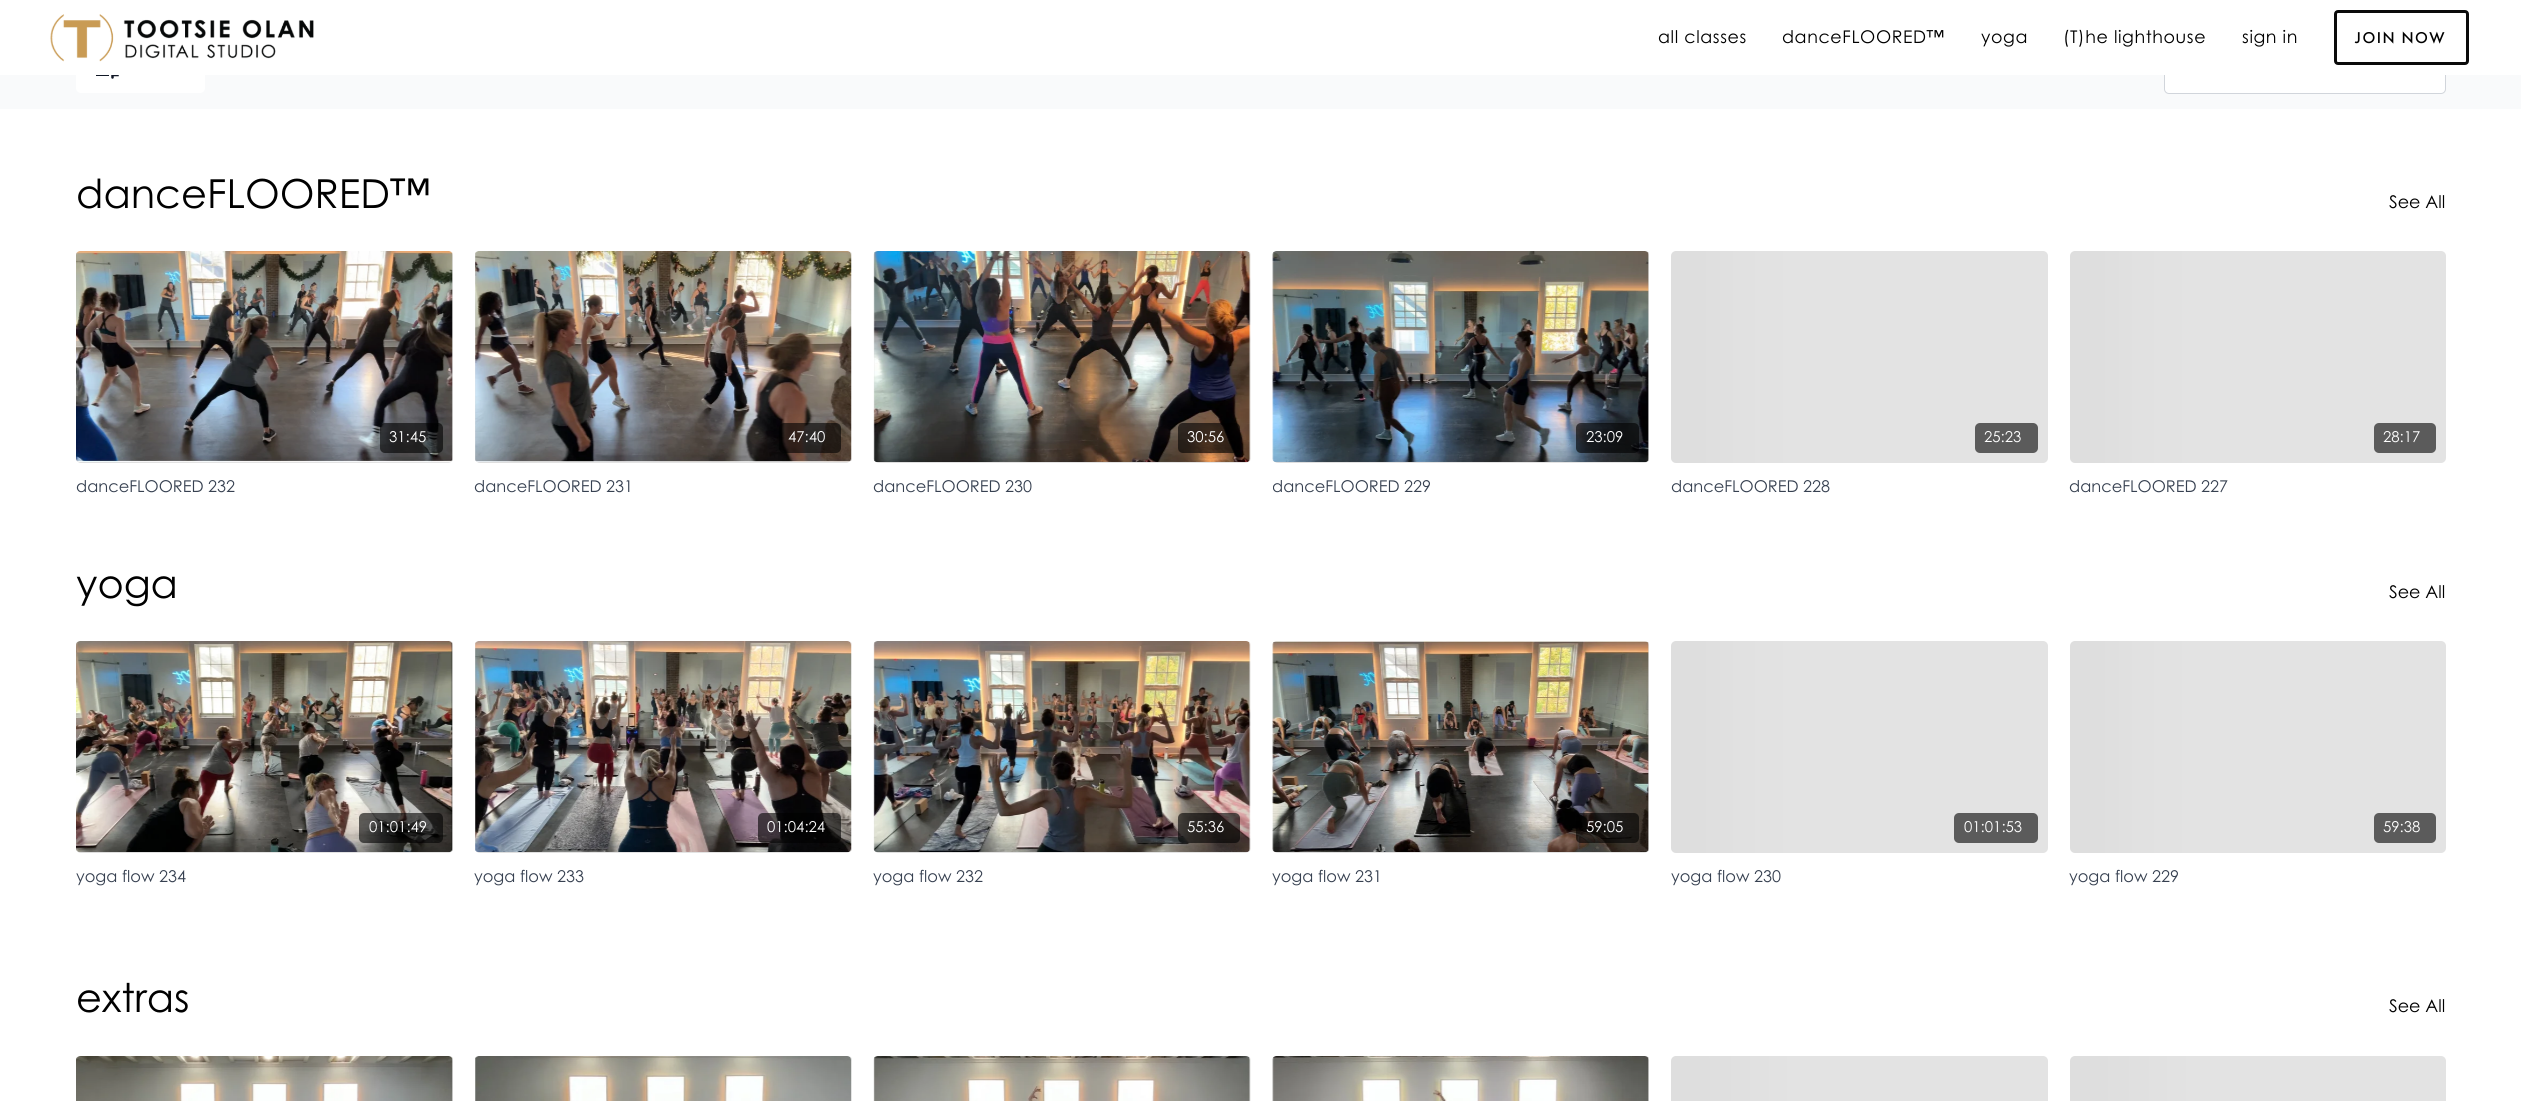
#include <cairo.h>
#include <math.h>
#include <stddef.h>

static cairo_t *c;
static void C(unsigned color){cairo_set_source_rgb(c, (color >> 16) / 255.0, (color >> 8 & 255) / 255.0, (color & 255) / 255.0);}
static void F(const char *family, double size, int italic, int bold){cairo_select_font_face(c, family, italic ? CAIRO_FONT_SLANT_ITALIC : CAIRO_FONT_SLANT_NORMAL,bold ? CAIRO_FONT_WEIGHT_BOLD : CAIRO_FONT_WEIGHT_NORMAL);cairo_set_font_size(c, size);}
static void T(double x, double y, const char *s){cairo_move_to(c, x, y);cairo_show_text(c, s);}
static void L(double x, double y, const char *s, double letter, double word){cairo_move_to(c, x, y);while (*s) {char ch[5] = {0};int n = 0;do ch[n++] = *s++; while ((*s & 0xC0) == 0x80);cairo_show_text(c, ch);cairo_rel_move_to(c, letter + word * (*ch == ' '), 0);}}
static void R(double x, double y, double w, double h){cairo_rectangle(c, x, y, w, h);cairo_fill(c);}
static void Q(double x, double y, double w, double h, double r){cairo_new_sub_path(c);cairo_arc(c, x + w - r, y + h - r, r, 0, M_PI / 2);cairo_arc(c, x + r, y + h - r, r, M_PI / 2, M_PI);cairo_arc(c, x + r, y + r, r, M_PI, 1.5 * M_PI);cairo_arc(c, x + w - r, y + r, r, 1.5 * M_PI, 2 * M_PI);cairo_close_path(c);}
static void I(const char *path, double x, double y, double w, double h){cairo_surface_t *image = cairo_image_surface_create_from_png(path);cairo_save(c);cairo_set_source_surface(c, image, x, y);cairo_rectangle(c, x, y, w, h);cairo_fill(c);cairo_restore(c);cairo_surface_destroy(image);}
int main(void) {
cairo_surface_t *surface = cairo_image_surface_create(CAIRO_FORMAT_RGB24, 2521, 1101);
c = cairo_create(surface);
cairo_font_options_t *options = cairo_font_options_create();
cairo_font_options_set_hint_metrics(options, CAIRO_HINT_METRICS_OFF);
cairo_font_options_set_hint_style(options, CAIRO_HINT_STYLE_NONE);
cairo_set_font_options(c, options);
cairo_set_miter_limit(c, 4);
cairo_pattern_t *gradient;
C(0xffffff);
cairo_paint(c);
C(0xf9fafb);
R(0,75,2521,34);
C(0xffffff);
Q(2164.5,41.5,281,52,4.5);
cairo_fill_preserve(c);
C(0xd1d5db);
cairo_set_line_width(c,1);
cairo_stroke(c);
C(0xffffff);
R(2164,41,282,34);
Q(76,43,129,50,5);
cairo_fill(c);
I("1.png",50,14,264,48);
F("Century Gothic",17.5,0,0);
C(0x000000);
L(1658,43,"all classes",.6,0);
L(1782,43,"danceFLOORED™",.6,0);
L(1981,43,"yoga",.6,0);
L(2063,43,"(T)he lighthouse",.6,0);
L(2242,43,"sign in",.6,0);
Q(2335.5,11.5,132,52,2.5);
C(0x0a0a0a);
cairo_set_line_width(c,3);
cairo_stroke(c);
F("Futura PT Medium",16.25,0,0);
C(0x000000);
L(2355,43,"JOIN NOW",1.5,0);
I("2.png",96,75,23,4);
F("Century Gothic",40,0,0);
T(76,208,"danceFLOORED™");
F("Century Gothic",17.5,0,0);
T(2389,208,"See All");
gradient = cairo_pattern_create_linear(76,357,453,357);
cairo_pattern_add_color_stop_rgba(gradient,.08,0.871,0.871,0.871,1);
cairo_pattern_add_color_stop_rgba(gradient,.18,0.882,0.882,0.882,1);
cairo_pattern_add_color_stop_rgba(gradient,.33,0.89,0.89,0.89,1);
cairo_set_source(c,gradient);
cairo_pattern_destroy(gradient);
Q(76,251,377,212,5);
cairo_fill(c);
I("3.png",76,251,377,211);
cairo_set_source_rgba(c,0,0,0,0.6);
Q(380,423,63,30,5);
cairo_fill(c);
F("Century Gothic",15,0,0);
C(0xffffff);
T(389,442,"31:45");
F("Century Gothic",16.25,0,0);
C(0x374151);
T(76,492,"danceFLOORED 232");
gradient = cairo_pattern_create_linear(475,357,851,357);
cairo_pattern_add_color_stop_rgba(gradient,.08,0.871,0.871,0.871,1);
cairo_pattern_add_color_stop_rgba(gradient,.18,0.882,0.882,0.882,1);
cairo_pattern_add_color_stop_rgba(gradient,.33,0.89,0.89,0.89,1);
cairo_set_source(c,gradient);
cairo_pattern_destroy(gradient);
Q(475,251,376,212,5);
cairo_fill(c);
I("4.png",475,251,377,211);
cairo_set_source_rgba(c,0,0,0,0.6);
Q(779,423,62,30,5);
cairo_fill(c);
F("Century Gothic",15,0,0);
C(0xffffff);
T(788,442,"47:40");
F("Century Gothic",16.25,0,0);
C(0x374151);
T(474,492,"danceFLOORED 231");
gradient = cairo_pattern_create_linear(874,357,1250,357);
cairo_pattern_add_color_stop_rgba(gradient,.08,0.871,0.871,0.871,1);
cairo_pattern_add_color_stop_rgba(gradient,.18,0.882,0.882,0.882,1);
cairo_pattern_add_color_stop_rgba(gradient,.33,0.89,0.89,0.89,1);
cairo_set_source(c,gradient);
cairo_pattern_destroy(gradient);
Q(874,251,376,212,5);
cairo_fill(c);
I("5.png",873,251,378,211);
cairo_set_source_rgba(c,0,0,0,0.6);
Q(1178,423,62,30,5);
cairo_fill(c);
F("Century Gothic",15,0,0);
C(0xffffff);
T(1187,442,"30:56");
F("Century Gothic",16.25,0,0);
C(0x374151);
T(873,492,"danceFLOORED 230");
gradient = cairo_pattern_create_linear(1273,357,1649,357);
cairo_pattern_add_color_stop_rgba(gradient,.08,0.871,0.871,0.871,1);
cairo_pattern_add_color_stop_rgba(gradient,.18,0.882,0.882,0.882,1);
cairo_pattern_add_color_stop_rgba(gradient,.33,0.89,0.89,0.89,1);
cairo_set_source(c,gradient);
cairo_pattern_destroy(gradient);
Q(1273,251,376,212,5);
cairo_fill(c);
I("6.png",1272,251,377,211);
cairo_set_source_rgba(c,0,0,0,0.6);
Q(1576,423,63,30,5);
cairo_fill(c);
F("Century Gothic",15,0,0);
C(0xffffff);
T(1586,442,"23:09");
cairo_save(c);
cairo_rectangle(c,1273,475,376,24);
cairo_clip(c);
F("Century Gothic",16.25,0,0);
C(0x374151);
T(1272,492,"danceFLOORED 229");
cairo_restore(c);
gradient = cairo_pattern_create_linear(1671,357,2048,357);
cairo_pattern_add_color_stop_rgba(gradient,.08,0.871,0.871,0.871,1);
cairo_pattern_add_color_stop_rgba(gradient,.18,0.882,0.882,0.882,1);
cairo_pattern_add_color_stop_rgba(gradient,.33,0.89,0.89,0.89,1);
cairo_set_source(c,gradient);
cairo_pattern_destroy(gradient);
Q(1671,251,377,212,5);
cairo_fill(c);
C(0x5b5b5b);
Q(1975,423,63,30,5);
cairo_fill(c);
C(0xffffff);
T(1984,442,"25:23");
F("Century Gothic",16.25,0,0);
C(0x374151);
T(1671,492,"danceFLOORED 228");
gradient = cairo_pattern_create_linear(2070,357,2446,357);
cairo_pattern_add_color_stop_rgba(gradient,.08,0.871,0.871,0.871,1);
cairo_pattern_add_color_stop_rgba(gradient,.18,0.882,0.882,0.882,1);
cairo_pattern_add_color_stop_rgba(gradient,.33,0.89,0.89,0.89,1);
cairo_set_source(c,gradient);
cairo_pattern_destroy(gradient);
Q(2070,251,376,212,5);
cairo_fill(c);
C(0x5b5b5b);
Q(2374,423,62,30,5);
cairo_fill(c);
F("Century Gothic",15,0,0);
C(0xffffff);
T(2383,442,"28:17");
F("Century Gothic",16.25,0,0);
C(0x374151);
T(2069,492,"danceFLOORED 227");
F("Century Gothic",40,0,0);
C(0x000000);
T(76,598,"yoga");
F("Century Gothic",17.5,0,0);
T(2389,598,"See All");
gradient = cairo_pattern_create_linear(76,747,453,747);
cairo_pattern_add_color_stop_rgba(gradient,.08,0.871,0.871,0.871,1);
cairo_pattern_add_color_stop_rgba(gradient,.18,0.882,0.882,0.882,1);
cairo_pattern_add_color_stop_rgba(gradient,.33,0.89,0.89,0.89,1);
cairo_set_source(c,gradient);
cairo_pattern_destroy(gradient);
Q(76,641,377,212,5);
cairo_fill(c);
I("7.png",76,641,377,211);
cairo_set_source_rgba(c,0,0,0,0.6);
Q(359,813,84,30,5);
cairo_fill(c);
F("Century Gothic",15,0,0);
C(0xffffff);
T(369,832,"01:01:49");
F("Century Gothic",16.25,0,0);
C(0x374151);
T(76,882,"yoga flow 234");
gradient = cairo_pattern_create_linear(475,747,851,747);
cairo_pattern_add_color_stop_rgba(gradient,.08,0.871,0.871,0.871,1);
cairo_pattern_add_color_stop_rgba(gradient,.18,0.882,0.882,0.882,1);
cairo_pattern_add_color_stop_rgba(gradient,.33,0.89,0.89,0.89,1);
cairo_set_source(c,gradient);
cairo_pattern_destroy(gradient);
Q(475,641,376,212,5);
cairo_fill(c);
I("8.png",475,641,377,211);
cairo_set_source_rgba(c,0,0,0,0.6);
Q(758,813,83,30,5);
cairo_fill(c);
F("Century Gothic",15,0,0);
C(0xffffff);
T(767,832,"01:04:24");
F("Century Gothic",16.25,0,0);
C(0x374151);
T(474,882,"yoga flow 233");
gradient = cairo_pattern_create_linear(874,747,1250,747);
cairo_pattern_add_color_stop_rgba(gradient,.08,0.871,0.871,0.871,1);
cairo_pattern_add_color_stop_rgba(gradient,.18,0.882,0.882,0.882,1);
cairo_pattern_add_color_stop_rgba(gradient,.33,0.89,0.89,0.89,1);
cairo_set_source(c,gradient);
cairo_pattern_destroy(gradient);
Q(874,641,376,212,5);
cairo_fill(c);
I("9.png",873,641,378,211);
cairo_set_source_rgba(c,0,0,0,0.6);
Q(1178,813,62,30,5);
cairo_fill(c);
F("Century Gothic",15,0,0);
C(0xffffff);
T(1187,832,"55:36");
F("Century Gothic",16.25,0,0);
C(0x374151);
T(873,882,"yoga flow 232");
gradient = cairo_pattern_create_linear(1273,747,1649,747);
cairo_pattern_add_color_stop_rgba(gradient,.08,0.871,0.871,0.871,1);
cairo_pattern_add_color_stop_rgba(gradient,.18,0.882,0.882,0.882,1);
cairo_pattern_add_color_stop_rgba(gradient,.33,0.89,0.89,0.89,1);
cairo_set_source(c,gradient);
cairo_pattern_destroy(gradient);
Q(1273,641,376,212,5);
cairo_fill(c);
I("10.png",1272,641,377,211);
cairo_set_source_rgba(c,0,0,0,0.6);
Q(1576,813,63,30,5);
cairo_fill(c);
F("Century Gothic",15,0,0);
C(0xffffff);
T(1586,832,"59:05");
F("Century Gothic",16.25,0,0);
C(0x374151);
T(1272,882,"yoga flow 231");
gradient = cairo_pattern_create_linear(1671,747,2048,747);
cairo_pattern_add_color_stop_rgba(gradient,.08,0.871,0.871,0.871,1);
cairo_pattern_add_color_stop_rgba(gradient,.18,0.882,0.882,0.882,1);
cairo_pattern_add_color_stop_rgba(gradient,.33,0.89,0.89,0.89,1);
cairo_set_source(c,gradient);
cairo_pattern_destroy(gradient);
Q(1671,641,377,212,5);
cairo_fill(c);
C(0x5b5b5b);
Q(1954,813,84,30,5);
cairo_fill(c);
F("Century Gothic",15,0,0);
C(0xffffff);
T(1964,832,"01:01:53");
F("Century Gothic",16.25,0,0);
C(0x374151);
T(1671,882,"yoga flow 230");
gradient = cairo_pattern_create_linear(2070,747,2446,747);
cairo_pattern_add_color_stop_rgba(gradient,.08,0.871,0.871,0.871,1);
cairo_pattern_add_color_stop_rgba(gradient,.18,0.882,0.882,0.882,1);
cairo_pattern_add_color_stop_rgba(gradient,.33,0.89,0.89,0.89,1);
cairo_set_source(c,gradient);
cairo_pattern_destroy(gradient);
Q(2070,641,376,212,5);
cairo_fill(c);
C(0x5b5b5b);
Q(2374,813,62,30,5);
cairo_fill(c);
F("Century Gothic",15,0,0);
C(0xffffff);
T(2383,832,"59:38");
F("Century Gothic",16.25,0,0);
C(0x374151);
T(2069,882,"yoga flow 229");
F("Century Gothic",40,0,0);
C(0x000000);
T(76,1012,"extras");
F("Century Gothic",17.5,0,0);
T(2389,1012,"See All");
gradient = cairo_pattern_create_linear(76,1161,453,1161);
cairo_pattern_add_color_stop_rgba(gradient,.08,0.871,0.871,0.871,1);
cairo_pattern_add_color_stop_rgba(gradient,.18,0.878,0.878,0.878,1);
cairo_pattern_add_color_stop_rgba(gradient,.33,0.89,0.89,0.89,1);
cairo_set_source(c,gradient);
cairo_pattern_destroy(gradient);
Q(76,1056,377,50,5);
cairo_fill(c);
I("11.png",76,1056,377,45);
I("12.png",475,1056,377,45);
gradient = cairo_pattern_create_linear(874,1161,1250,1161);
cairo_pattern_add_color_stop_rgba(gradient,.08,0.871,0.871,0.871,1);
cairo_pattern_add_color_stop_rgba(gradient,.18,0.878,0.878,0.878,1);
cairo_pattern_add_color_stop_rgba(gradient,.33,0.89,0.89,0.89,1);
cairo_set_source(c,gradient);
cairo_pattern_destroy(gradient);
Q(874,1056,376,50,5);
cairo_fill(c);
I("13.png",873,1056,378,45);
gradient = cairo_pattern_create_linear(1273,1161,1649,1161);
cairo_pattern_add_color_stop_rgba(gradient,.08,0.871,0.871,0.871,1);
cairo_pattern_add_color_stop_rgba(gradient,.18,0.878,0.878,0.878,1);
cairo_pattern_add_color_stop_rgba(gradient,.33,0.89,0.89,0.89,1);
cairo_set_source(c,gradient);
cairo_pattern_destroy(gradient);
Q(1273,1056,376,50,5);
cairo_fill(c);
I("14.png",1272,1056,377,45);
gradient = cairo_pattern_create_linear(1671,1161,2048,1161);
cairo_pattern_add_color_stop_rgba(gradient,.08,0.871,0.871,0.871,1);
cairo_pattern_add_color_stop_rgba(gradient,.18,0.878,0.878,0.878,1);
cairo_pattern_add_color_stop_rgba(gradient,.33,0.89,0.89,0.89,1);
cairo_set_source(c,gradient);
cairo_pattern_destroy(gradient);
Q(1671,1056,377,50,5);
cairo_fill(c);
gradient = cairo_pattern_create_linear(2070,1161,2446,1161);
cairo_pattern_add_color_stop_rgba(gradient,.08,0.871,0.871,0.871,1);
cairo_pattern_add_color_stop_rgba(gradient,.18,0.878,0.878,0.878,1);
cairo_pattern_add_color_stop_rgba(gradient,.33,0.89,0.89,0.89,1);
cairo_set_source(c,gradient);
cairo_pattern_destroy(gradient);
Q(2070,1056,376,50,5);
cairo_fill(c);
cairo_surface_write_to_png(surface, "o.png");
cairo_font_options_destroy(options);
cairo_destroy(c);
cairo_surface_destroy(surface);
return 0;
}
